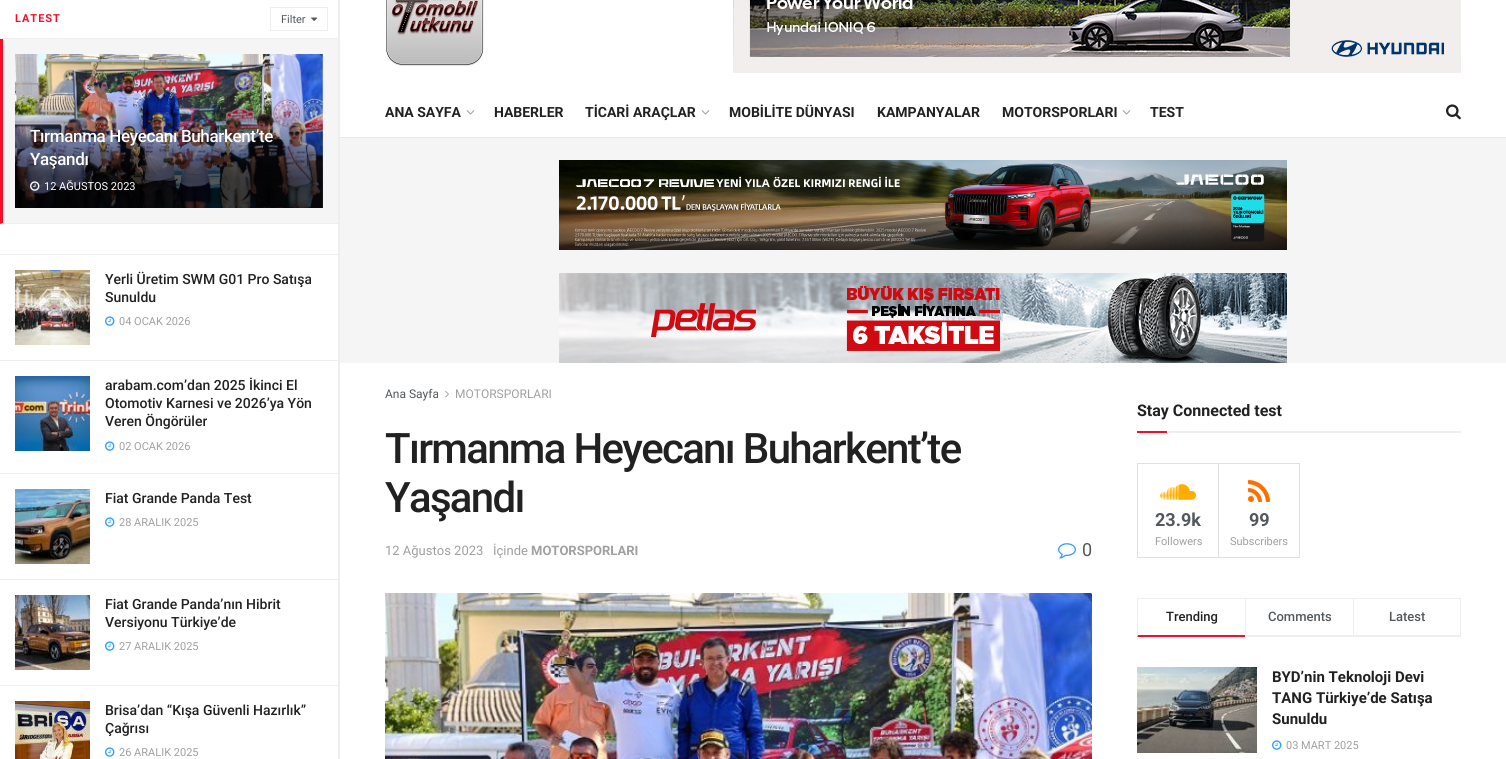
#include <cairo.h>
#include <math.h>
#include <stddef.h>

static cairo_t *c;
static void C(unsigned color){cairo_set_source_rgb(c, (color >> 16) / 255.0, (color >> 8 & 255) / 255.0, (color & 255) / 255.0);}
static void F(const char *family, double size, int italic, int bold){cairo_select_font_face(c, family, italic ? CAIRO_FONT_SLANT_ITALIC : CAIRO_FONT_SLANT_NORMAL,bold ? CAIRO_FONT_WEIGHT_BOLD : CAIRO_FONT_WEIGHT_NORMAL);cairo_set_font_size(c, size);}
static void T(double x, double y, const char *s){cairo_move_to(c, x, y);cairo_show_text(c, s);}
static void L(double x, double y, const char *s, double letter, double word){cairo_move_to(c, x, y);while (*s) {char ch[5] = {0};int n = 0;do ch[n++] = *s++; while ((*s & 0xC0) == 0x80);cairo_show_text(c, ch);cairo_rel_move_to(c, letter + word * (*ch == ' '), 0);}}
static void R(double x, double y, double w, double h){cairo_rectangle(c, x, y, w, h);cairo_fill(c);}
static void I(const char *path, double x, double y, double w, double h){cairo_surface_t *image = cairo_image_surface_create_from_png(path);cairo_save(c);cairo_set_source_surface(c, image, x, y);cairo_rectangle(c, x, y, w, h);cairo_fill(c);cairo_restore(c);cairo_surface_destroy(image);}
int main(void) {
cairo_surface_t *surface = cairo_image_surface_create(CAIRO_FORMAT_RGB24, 1506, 759);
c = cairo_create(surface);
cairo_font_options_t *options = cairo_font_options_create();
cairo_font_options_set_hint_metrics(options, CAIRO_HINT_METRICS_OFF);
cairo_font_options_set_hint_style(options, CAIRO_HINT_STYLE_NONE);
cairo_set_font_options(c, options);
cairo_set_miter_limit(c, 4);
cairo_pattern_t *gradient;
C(0xffffff);
cairo_paint(c);
C(0xeeeeee);
R(338,0,2,759);
R(0,38,338,1);
F("Roboto",11,0,1);
C(0xf70d28);
L(15,22,"LATEST",1,0);
cairo_rectangle(c,270.5,7.5,57,23);
C(0xeeeeee);
cairo_set_line_width(c,1);
cairo_stroke(c);
F("Roboto",11,0,0);
C(0x53585c);
T(281,23,"Filter");
I("1.png",311,17,7,4);
C(0xf5f5f5);
R(0,39,338,185);
C(0xeeeeee);
cairo_new_path(c);
cairo_move_to(c,338,224);
cairo_line_to(c,0,224);
cairo_line_to(c,3,223);
cairo_line_to(c,338,223);
cairo_close_path(c);
cairo_fill(c);
C(0xf70d28);
cairo_new_path(c);
cairo_move_to(c,0,224);
cairo_line_to(c,0,39);
cairo_line_to(c,3,39);
cairo_line_to(c,3,223);
cairo_close_path(c);
cairo_fill(c);
I("2.png",15,54,308,154);
gradient = cairo_pattern_create_linear(169,105,169,208);
cairo_pattern_add_color_stop_rgba(gradient,0,0,0,0,0);
cairo_pattern_add_color_stop_rgba(gradient,.7,0,0,0,.65);
cairo_set_source(c,gradient);
cairo_pattern_destroy(gradient);
R(15,107,308,101);
F("Roboto Medium",17,0,0);
C(0xffffff);
L(30,142,"Tırmanma Heyecanı Buharkent’te",-.35,0);
L(30,165,"Yaşandı",-.35,0);
I("3.png",30,181,10,10);
F("Roboto",11,0,0);
T(44,190,"12 AĞUSTOS 2023");
C(0xeeeeee);
R(0,254,338,1);
R(0,360,338,1);
I("4.png",15,270,75,75);
F("Roboto Medium",14,0,0);
C(0x212121);
T(105,284,"Yerli Üretim SWM G01 Pro Satışa");
T(105,302,"Sunuldu");
I("5.png",105,316,10,10);
F("Roboto",11,0,0);
C(0xa0a0a0);
T(119,325,"04 OCAK 2026");
C(0xeeeeee);
R(0,473,338,1);
I("6.png",15,376,75,75);
F("Roboto Medium",14,0,0);
C(0x212121);
T(105,390,"arabam.com’dan 2025 İkinci El");
T(105,408,"Otomotiv Karnesi ve 2026’ya Yön");
T(105,426,"Veren Öngörüler");
I("5.png",105,441,10,10);
F("Roboto",11,0,0);
C(0xa0a0a0);
T(119,450,"02 OCAK 2026");
C(0xeeeeee);
R(0,579,338,1);
I("7.png",15,489,75,75);
F("Roboto Medium",14,0,0);
C(0x212121);
T(105,503,"Fiat Grande Panda Test");
I("5.png",105,517,10,10);
F("Roboto",11,0,0);
C(0xa0a0a0);
T(119,526,"28 ARALIK 2025");
C(0xeeeeee);
R(0,685,338,1);
I("8.png",15,595,75,75);
F("Roboto Medium",14,0,0);
C(0x212121);
T(105,609,"Fiat Grande Panda’nın Hibrit");
T(105,627,"Versiyonu Türkiye’de");
I("5.png",105,641,10,10);
F("Roboto",11,0,0);
C(0xa0a0a0);
T(119,650,"27 ARALIK 2025");
I("9.png",15,701,75,58);
F("Roboto Medium",14,0,0);
C(0x212121);
T(105,715,"Brisa’dan “Kışa Güvenli Hazırlık”");
T(105,733,"Çağrısı");
I("5.png",105,747,10,10);
F("Roboto",11,0,0);
C(0xa0a0a0);
T(119,756,"26 ARALIK 2025");
I("10.png",385,0,99,67);
I("11.png",733,0,728,73);
C(0xe8e8e8);
R(340,137,1166,1);
F("Roboto",14,0,1);
C(0x212121);
T(385,117,"ANA SAYFA");
I("12.png",466,110,9,5);
T(494,117,"HABERLER");
T(585,117,"TİCARİ ARAÇLAR");
I("12.png",701,110,9,5);
T(729,117,"MOBİLİTE DÜNYASI");
T(877,117,"KAMPANYALAR");
T(1002,117,"MOTORSPORLARI");
I("12.png",1122,110,9,5);
T(1150,117,"TEST");
I("13.png",1446,104,15,16);
C(0xf5f5f5);
R(340,138,1166,225);
I("14.png",559,160,728,90);
I("15.png",559,273,728,90);
F("Roboto",12,0,0);
C(0x53585c);
T(385,398,"Ana Sayfa");
I("16.png",445,390,4,8);
C(0xa0a0a0);
T(455,398,"MOTORSPORLARI");
F("Roboto Medium",42,0,0);
C(0x212121);
L(385,463,"Tırmanma Heyecanı Buharkent’te",-1.7,0);
L(385,512,"Yaşandı",-1.7,0);
F("Roboto",13,0,0);
C(0xa0a0a0);
T(385,555,"12 Ağustos 2023");
T(493,555,"İçinde");
F("Roboto",13,0,1);
T(531,555,"MOTORSPORLARI");
I("17.png",1058,543,18,16);
F("Roboto",18,0,0);
C(0x53585c);
T(1082,556,"0");
I("18.png",385,593,707,166);
C(0xeeeeee);
R(1167,431,294,2);
F("Roboto",16,0,1);
C(0x212121);
T(1137,416,"Stay Connected test");
C(0xf70d28);
R(1137,431,30,2);
cairo_rectangle(c,1137.5,463.5,81,94);
C(0xe0e0e0);
cairo_stroke(c);
I("19.png",1160,484,36,16);
F("Roboto",18,0,1);
C(0x53585c);
T(1155,526,"23.9k");
F("Roboto",11,0,0);
C(0xa0a0a0);
T(1155,545,"Followers");
cairo_rectangle(c,1218.5,463.5,81,94);
C(0xe0e0e0);
cairo_stroke(c);
I("20.png",1248,480,22,22);
F("Roboto",18,0,1);
C(0x53585c);
T(1249,526,"99");
F("Roboto",11,0,0);
C(0xa0a0a0);
T(1230,545,"Subscribers");
C(0xeeeeee);
R(1137,598,324,1);
C(0xf70d28);
cairo_new_path(c);
cairo_move_to(c,1245,637);
cairo_line_to(c,1137,637);
cairo_line_to(c,1138,635);
cairo_line_to(c,1245,635);
cairo_close_path(c);
cairo_fill(c);
C(0xeeeeee);
cairo_new_path(c);
cairo_move_to(c,1137,637);
cairo_line_to(c,1137,598);
cairo_line_to(c,1138,599);
cairo_line_to(c,1138,635);
cairo_close_path(c);
cairo_fill(c);
F("Roboto Medium",13,0,0);
C(0x212121);
T(1166,621,"Trending");
C(0xeeeeee);
R(1245,635,108,2);
R(1245,598,1,39);
C(0x53585c);
T(1268,621,"Comments");
C(0xeeeeee);
R(1460,598,1,39);
R(1353,635,108,2);
R(1353,598,1,39);
C(0x53585c);
T(1389,621,"Latest");
I("21.png",1137,667,120,86);
F("Roboto",15,0,1);
C(0x212121);
T(1272,682,"BYD’nin Teknoloji Devi");
T(1272,703,"TANG Türkiye’de Satışa");
T(1272,724,"Sunuldu");
I("5.png",1272,740,10,10);
F("Roboto",11,0,0);
C(0xa0a0a0);
T(1286,749,"03 MART 2025");
cairo_surface_write_to_png(surface, "o.png");
cairo_font_options_destroy(options);
cairo_destroy(c);
cairo_surface_destroy(surface);
return 0;
}
